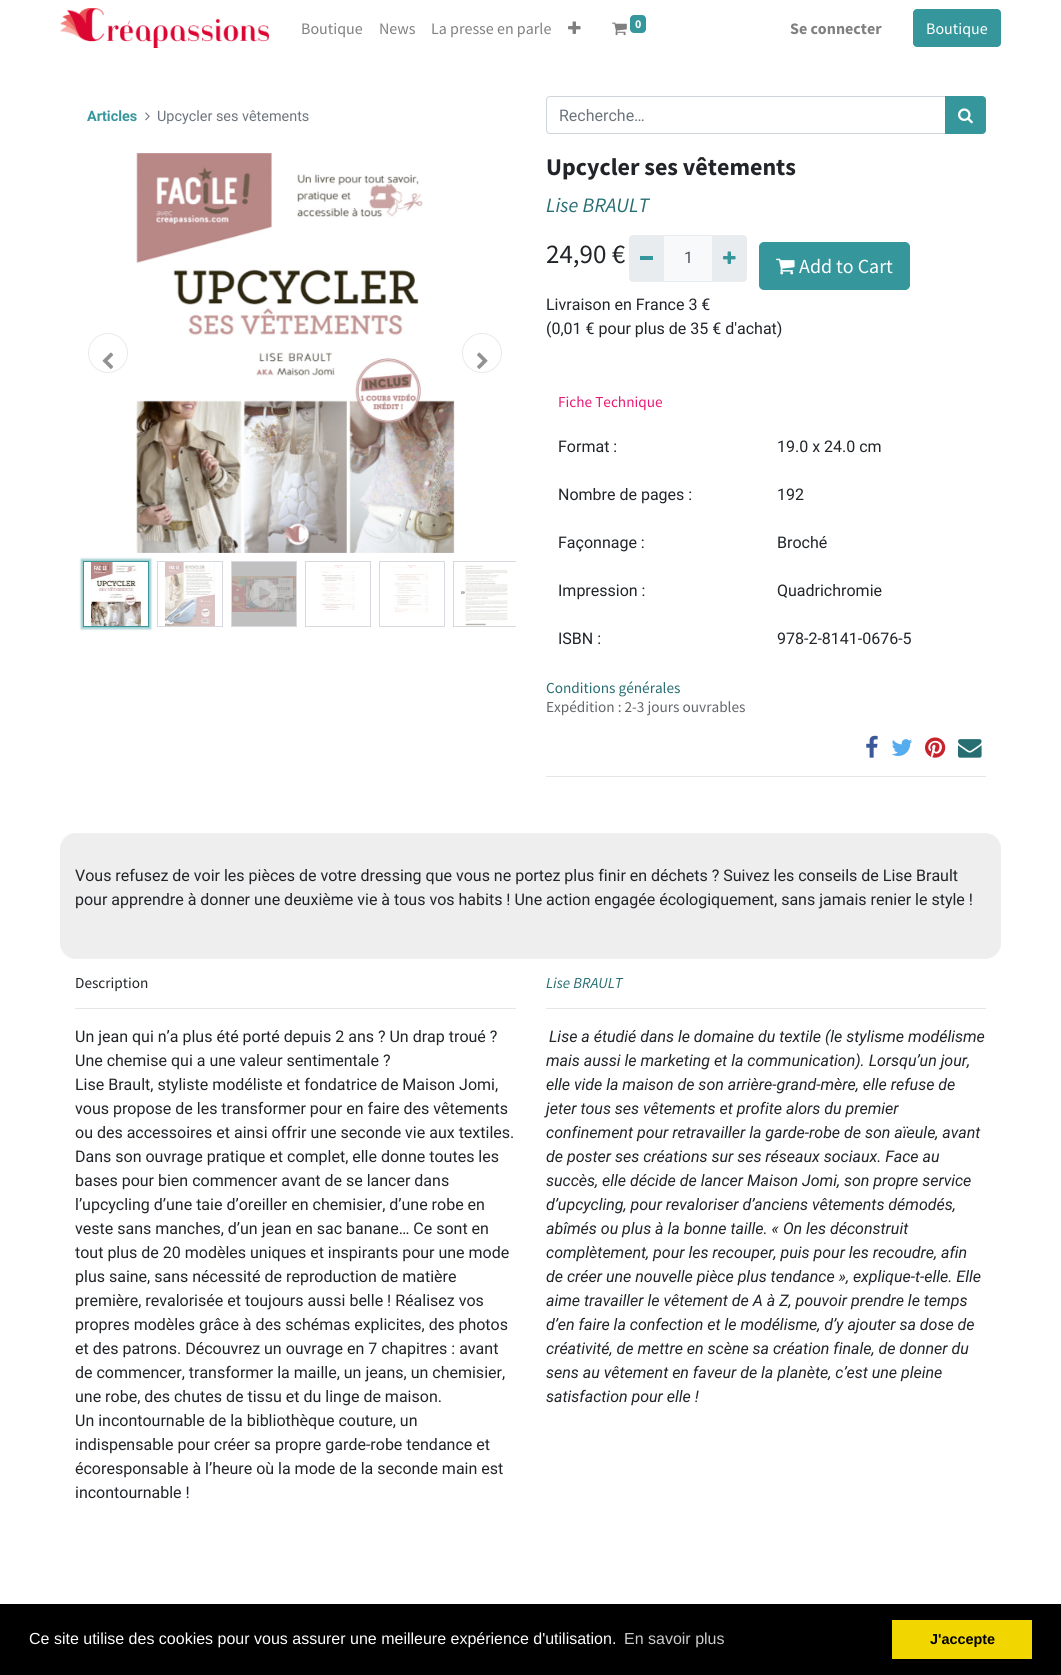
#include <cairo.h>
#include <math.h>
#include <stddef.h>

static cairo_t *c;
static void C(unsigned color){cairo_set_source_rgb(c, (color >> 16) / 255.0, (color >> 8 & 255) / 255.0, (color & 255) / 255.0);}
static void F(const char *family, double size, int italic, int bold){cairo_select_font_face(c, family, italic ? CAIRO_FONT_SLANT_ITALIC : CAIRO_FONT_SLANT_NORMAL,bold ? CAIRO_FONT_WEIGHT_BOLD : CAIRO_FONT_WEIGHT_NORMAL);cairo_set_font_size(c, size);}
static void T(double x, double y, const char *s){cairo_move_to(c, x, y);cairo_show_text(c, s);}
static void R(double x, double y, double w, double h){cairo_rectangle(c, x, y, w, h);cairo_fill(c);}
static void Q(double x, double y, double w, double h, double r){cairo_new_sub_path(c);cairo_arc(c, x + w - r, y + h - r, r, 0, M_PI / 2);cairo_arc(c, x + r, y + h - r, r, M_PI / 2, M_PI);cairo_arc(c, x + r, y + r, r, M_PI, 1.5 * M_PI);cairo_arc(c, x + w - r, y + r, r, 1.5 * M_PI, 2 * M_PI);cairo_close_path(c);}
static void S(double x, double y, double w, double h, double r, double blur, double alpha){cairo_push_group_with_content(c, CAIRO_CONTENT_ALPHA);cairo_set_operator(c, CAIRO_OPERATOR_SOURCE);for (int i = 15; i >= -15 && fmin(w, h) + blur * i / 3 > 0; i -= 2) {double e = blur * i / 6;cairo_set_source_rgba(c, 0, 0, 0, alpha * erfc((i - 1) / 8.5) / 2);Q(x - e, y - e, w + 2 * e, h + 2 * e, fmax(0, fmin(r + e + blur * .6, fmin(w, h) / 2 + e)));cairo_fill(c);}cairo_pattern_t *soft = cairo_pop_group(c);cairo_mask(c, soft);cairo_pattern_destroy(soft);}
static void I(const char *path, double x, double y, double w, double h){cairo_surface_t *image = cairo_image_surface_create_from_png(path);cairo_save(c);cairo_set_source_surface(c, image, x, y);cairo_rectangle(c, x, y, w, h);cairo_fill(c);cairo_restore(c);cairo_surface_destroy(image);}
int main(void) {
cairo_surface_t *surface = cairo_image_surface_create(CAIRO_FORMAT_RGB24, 1061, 1675);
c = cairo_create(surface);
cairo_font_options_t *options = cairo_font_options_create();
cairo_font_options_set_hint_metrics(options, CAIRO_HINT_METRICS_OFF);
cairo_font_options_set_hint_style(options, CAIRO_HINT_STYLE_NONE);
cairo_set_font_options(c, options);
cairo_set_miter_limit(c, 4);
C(0xffffff);
cairo_paint(c);
I("1.png",60,8,209,40);
F("Source Sans Pro",16,0,0);
C(0x808080);
T(301,34,"Boutique");
T(379,34,"News");
T(431,34,"La presse en parle");
I("2.png",568,21,13,13);
I("3.png",612,22,15,14);
C(0x35979c);
Q(630,15,16,18,4);
cairo_fill(c);
F("Source Sans Pro",12,0,1);
C(0xffffff);
T(635,28,"0");
F("Source Sans Pro",16,0,1);
C(0x808080);
T(790,34,"Se connecter");
C(0x35979c);
Q(913.5,9.5,87,37,3.5);
cairo_fill_preserve(c);
cairo_set_line_width(c,1);
cairo_stroke(c);
F("Source Sans Pro",16,0,0);
C(0xffffff);
T(926,34,"Boutique");
F("Roboto",14.4,0,1);
C(0x35979c);
T(87,121,"Articles");
I("4.png",145,112,5,9);
F("Roboto",14.4,0,0);
C(0x6c757d);
T(157,121,"Upcycler ses vêtements");
cairo_new_path(c);
cairo_move_to(c,550,96.5);
cairo_line_to(c,945.5,96.5);
cairo_line_to(c,945.5,133.5);
cairo_line_to(c,550,133.5);
cairo_curve_to(c,548,133.5,546.5,132,546.5,130);
cairo_line_to(c,546.5,100);
cairo_curve_to(c,546.5,98,548,96.5,550,96.5);
cairo_close_path(c);
C(0xced4da);
cairo_stroke(c);
F("Roboto",16,0,0);
C(0x6c757d);
T(559,121,"Recherche…");
C(0x35979c);
cairo_new_path(c);
cairo_move_to(c,945.5,96.5);
cairo_line_to(c,982,96.5);
cairo_curve_to(c,984,96.5,985.5,98,985.5,100);
cairo_line_to(c,985.5,130);
cairo_curve_to(c,985.5,132,984,133.5,982,133.5);
cairo_line_to(c,945.5,133.5);
cairo_close_path(c);
cairo_fill_preserve(c);
cairo_stroke(c);
I("5.png",958,108,15,16);
cairo_arc(c,108,353,19.5,0,2 * M_PI);
C(0xe7eaed);
cairo_stroke(c);
I("6.png",102,352,12,17);
I("7.png",136,153,319,400);
cairo_arc(c,482,353,19.5,0,2 * M_PI);
cairo_stroke(c);
I("8.png",477,352,11,17);
cairo_save(c);
cairo_set_fill_rule(c,CAIRO_FILL_RULE_EVEN_ODD);
cairo_new_path(c);
cairo_move_to(c,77,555);
cairo_line_to(c,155,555);
cairo_line_to(c,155,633);
cairo_line_to(c,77,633);
cairo_close_path(c);
cairo_move_to(c,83,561);
cairo_line_to(c,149,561);
cairo_line_to(c,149,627);
cairo_line_to(c,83,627);
cairo_close_path(c);
cairo_clip(c);
C(0x35979c);
S(81,559,70,70,0,1,.5);
cairo_restore(c);
cairo_rectangle(c,83.5,561.5,65,65);
C(0x35979c);
cairo_stroke(c);
I("9.png",91,562,50,64);
cairo_rectangle(c,157.5,561.5,65,65);
C(0xd6dade);
cairo_stroke(c);
I("10.png",165,562,50,64);
C(0xc0c0c0);
cairo_rectangle(c,231.5,561.5,65,65);
cairo_fill_preserve(c);
C(0xd6dade);
cairo_stroke(c);
I("11.png",232,576,64,36);
I("12.png",250,580,28,28);
cairo_rectangle(c,305.5,561.5,65,65);
cairo_stroke(c);
I("13.png",318,564,41,46);
cairo_rectangle(c,379.5,561.5,65,65);
cairo_stroke(c);
I("14.png",391,565,41,48);
cairo_save(c);
cairo_rectangle(c,75,553,441,86);
cairo_clip(c);
cairo_rectangle(c,453.5,561.5,65,65);
cairo_stroke(c);
cairo_restore(c);
I("15.png",461,565,47,61);
F("Source Sans Pro",24,0,1);
C(0x212529);
T(546,175,"Upcycler ses vêtements");
F("Source Sans Pro",20.5,1,0);
C(0x276e72);
T(546,212,"Lise BRAULT");
F("Source Sans Pro",27,0,0);
C(0x212529);
T(546,263,"24,90 €");
C(0xf8f9fa);
cairo_rectangle(c,663.5,235.5,49,46);
cairo_fill_preserve(c);
C(0xe9ecef);
cairo_stroke(c);
cairo_new_path(c);
cairo_move_to(c,633,235);
cairo_line_to(c,664,235);
cairo_line_to(c,664,282);
cairo_line_to(c,633,282);
cairo_curve_to(c,631,282,629,280,629,278);
cairo_line_to(c,629,239);
cairo_curve_to(c,629,237,631,235,633,235);
cairo_close_path(c);
cairo_fill(c);
C(0x35979c);
R(640,256,13,4);
F("Roboto",16,0,0);
C(0x495057);
T(684,263,"1");
C(0xe9ecef);
cairo_new_path(c);
cairo_move_to(c,712,235);
cairo_line_to(c,743,235);
cairo_curve_to(c,745,235,747,237,747,239);
cairo_line_to(c,747,278);
cairo_curve_to(c,747,280,745,282,743,282);
cairo_line_to(c,712,282);
cairo_close_path(c);
cairo_fill(c);
I("16.png",723,251,13,13);
C(0x35979c);
Q(759.5,242.5,150,47,4.5);
cairo_fill_preserve(c);
cairo_stroke(c);
I("17.png",776,258,19,17);
F("Source Sans Pro",20,0,0);
C(0xffffff);
T(799,273,"Add to Cart");
F("Roboto",16,0,0);
C(0x212529);
T(546,310,"Livraison en France 3 €");
T(546,334,"(0,01 € pour plus de 35 € d'achat)");
F("Source Sans Pro",15.25,0,0);
C(0xe81a74);
T(558,407,"Fiche Technique");
F("Roboto",16,0,0);
C(0x212529);
T(558,452,"Format :");
T(777,452,"19.0 x 24.0 cm");
T(558,500,"Nombre de pages :");
T(777,500,"192");
T(558,548,"Façonnage :");
T(777,548,"Broché");
T(558,596,"Impression :");
T(777,596,"Quadrichromie");
T(558,644,"ISBN :");
T(777,644,"978-2-8141-0676-5");
F("Source Sans Pro",15.25,0,0);
C(0x276e72);
T(546,693,"Conditions générales");
C(0x646669);
T(546,712,"Expédition : 2-3 jours ouvrables");
I("18.png",866,735,12,23);
I("19.png",891,739,22,17);
I("20.png",925,737,21,21);
I("21.png",958,739,24,19);
C(0xe6e6e6);
R(546,776,440,1);
C(0xeeeeee);
Q(60,833,941,126,16);
cairo_fill(c);
F("Roboto",16,0,0);
C(0x212529);
T(75,881,"Vous refusez de voir les pièces de votre dressing que vous ne portez plus finir en déchets ? Suivez les conseils de Lise Brault");
T(75,905,"pour apprendre à donner une deuxième vie à tous vos habits ! Une action engagée écologiquement, sans jamais renier le style !");
F("Source Sans Pro",15.25,0,0);
T(75,988,"Description");
C(0xe6e6e6);
R(75,1008,441,1);
F("Roboto",16,0,0);
C(0x212529);
T(75,1042,"Un jean qui n’a plus été porté depuis 2 ans ? Un drap troué ?");
T(75,1066,"Une chemise qui a une valeur sentimentale ?");
T(75,1090,"Lise Brault, styliste modéliste et fondatrice de Maison Jomi,");
T(75,1114,"vous propose de les transformer pour en faire des vêtements");
T(75,1138,"ou des accessoires et ainsi offrir une seconde vie aux textiles.");
T(75,1162,"Dans son ouvrage pratique et complet, elle donne toutes les");
T(75,1186,"bases pour bien commencer avant de se lancer dans");
T(75,1210,"l’upcycling d’une taie d’oreiller en chemisier, d’une robe en");
T(75,1234,"veste sans manches, d’un jean en sac banane… Ce sont en");
T(75,1258,"tout plus de 20 modèles uniques et inspirants pour une mode");
T(75,1282,"plus saine, sans nécessité de reproduction de matière");
T(75,1306,"première, revalorisée et toujours aussi belle ! Réalisez vos");
T(75,1330,"propres modèles grâce à des schémas explicites, des photos");
T(75,1354,"et des patrons. Découvrez un ouvrage en 7 chapitres : avant");
T(75,1378,"de commencer, transformer la maille, un jeans, un chemisier,");
T(75,1402,"une robe, des chutes de tissu et du linge de maison.");
T(75,1426,"Un incontournable de la bibliothèque couture, un");
T(75,1450,"indispensable pour créer sa propre garde-robe tendance et");
T(75,1474,"écoresponsable à l’heure où la mode de la seconde main est");
T(75,1498,"incontournable !");
F("Source Sans Pro",15.25,1,0);
C(0x276e72);
T(546,988,"Lise BRAULT");
C(0xe6e6e6);
R(546,1008,440,1);
F("Roboto",16,1,0);
C(0x212529);
T(549,1042,"Lise a étudié dans le domaine du textile (le stylisme modélisme");
T(546,1066,"mais aussi le marketing et la communication). Lorsqu’un jour,");
T(546,1090,"elle vide la maison de son arrière-grand-mère, elle refuse de");
T(546,1114,"jeter tous ses vêtements et profite alors du premier");
T(546,1138,"confinement pour retravailler la garde-robe de son aïeule, avant");
T(546,1162,"de poster ses créations sur ses réseaux sociaux. Face au");
T(546,1186,"succès, elle décide de lancer Maison Jomi, son propre service");
T(546,1210,"d’upcycling, pour revaloriser d’anciens vêtements démodés,");
T(546,1234,"abîmés ou plus à la bonne taille. « On les déconstruit");
T(546,1258,"complètement, pour les recouper, puis pour les recoudre, afin");
T(546,1282,"de créer une nouvelle pièce plus tendance », explique-t-elle. Elle");
T(546,1306,"aime travailler le vêtement de A à Z, pouvoir prendre le temps");
T(546,1330,"d’en faire la confection et le modélisme, d’y ajouter sa dose de");
T(546,1354,"créativité, de mettre en scène sa création finale, de donner du");
T(546,1378,"sens au vêtement en faveur de la planète, c’est une pleine");
T(546,1402,"satisfaction pour elle !");
C(0x000000);
R(0,1604,1061,71);
F("Liberation Sans",16,0,0);
C(0xffffff);
T(29,1644,"Ce site utilise des cookies pour vous assurer une meilleure expérience d'utilisation.");
C(0xcccccc);
T(624,1644,"En savoir plus");
C(0xf1d600);
R(892,1620,140,39);
F("Liberation Sans",14.4,0,1);
C(0x000000);
T(930,1644,"J'accepte");
cairo_surface_write_to_png(surface, "o.png");
cairo_font_options_destroy(options);
cairo_destroy(c);
cairo_surface_destroy(surface);
return 0;
}
